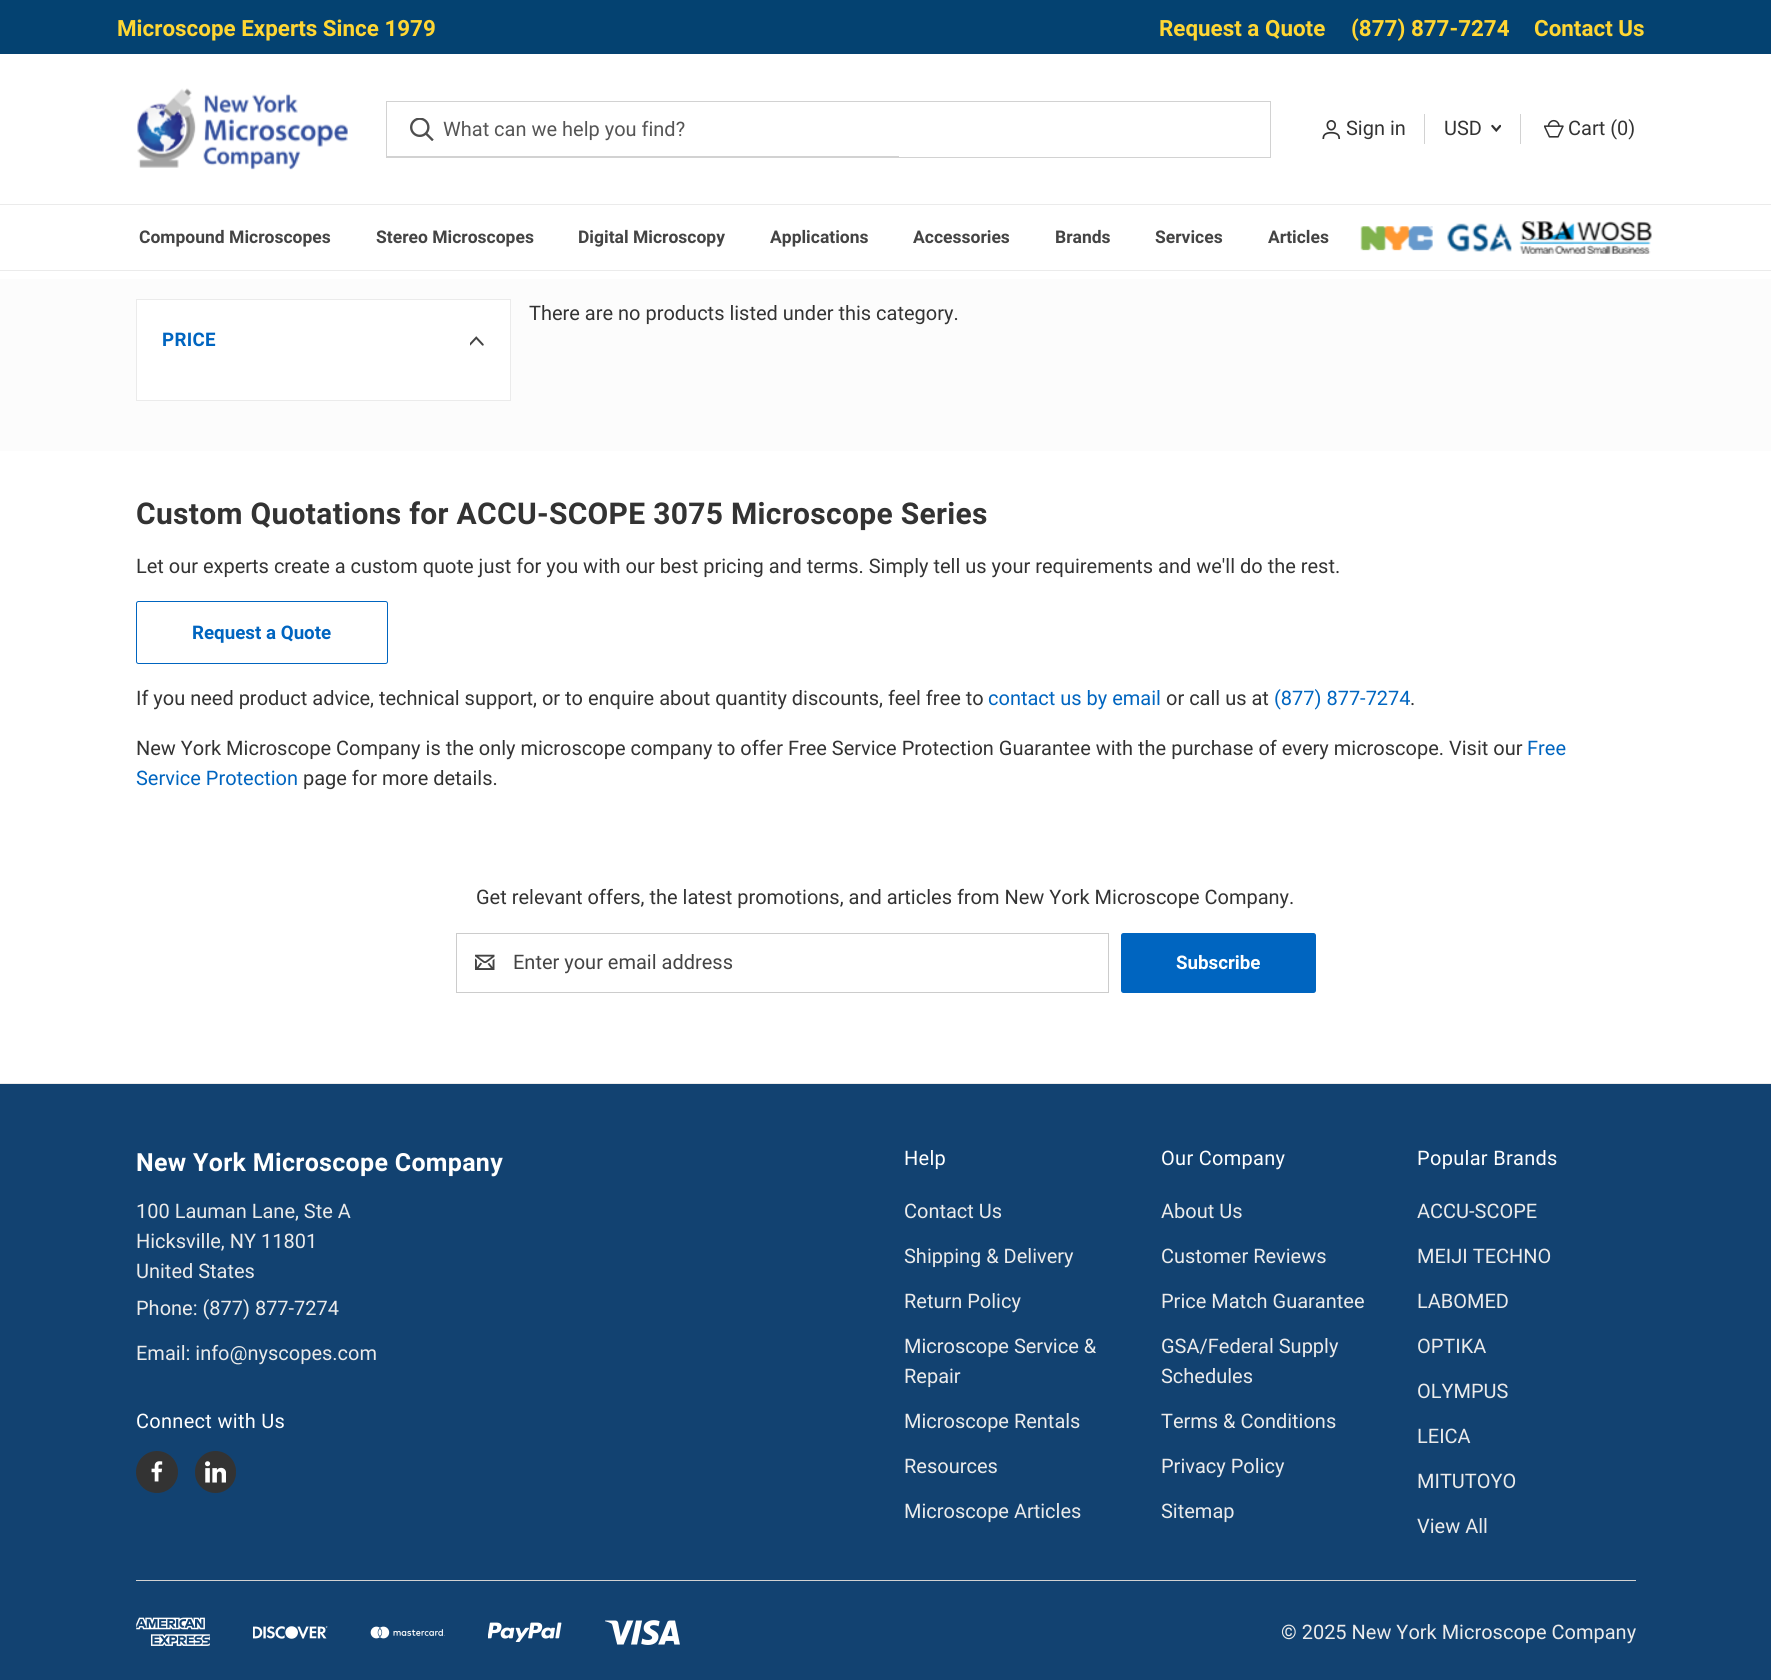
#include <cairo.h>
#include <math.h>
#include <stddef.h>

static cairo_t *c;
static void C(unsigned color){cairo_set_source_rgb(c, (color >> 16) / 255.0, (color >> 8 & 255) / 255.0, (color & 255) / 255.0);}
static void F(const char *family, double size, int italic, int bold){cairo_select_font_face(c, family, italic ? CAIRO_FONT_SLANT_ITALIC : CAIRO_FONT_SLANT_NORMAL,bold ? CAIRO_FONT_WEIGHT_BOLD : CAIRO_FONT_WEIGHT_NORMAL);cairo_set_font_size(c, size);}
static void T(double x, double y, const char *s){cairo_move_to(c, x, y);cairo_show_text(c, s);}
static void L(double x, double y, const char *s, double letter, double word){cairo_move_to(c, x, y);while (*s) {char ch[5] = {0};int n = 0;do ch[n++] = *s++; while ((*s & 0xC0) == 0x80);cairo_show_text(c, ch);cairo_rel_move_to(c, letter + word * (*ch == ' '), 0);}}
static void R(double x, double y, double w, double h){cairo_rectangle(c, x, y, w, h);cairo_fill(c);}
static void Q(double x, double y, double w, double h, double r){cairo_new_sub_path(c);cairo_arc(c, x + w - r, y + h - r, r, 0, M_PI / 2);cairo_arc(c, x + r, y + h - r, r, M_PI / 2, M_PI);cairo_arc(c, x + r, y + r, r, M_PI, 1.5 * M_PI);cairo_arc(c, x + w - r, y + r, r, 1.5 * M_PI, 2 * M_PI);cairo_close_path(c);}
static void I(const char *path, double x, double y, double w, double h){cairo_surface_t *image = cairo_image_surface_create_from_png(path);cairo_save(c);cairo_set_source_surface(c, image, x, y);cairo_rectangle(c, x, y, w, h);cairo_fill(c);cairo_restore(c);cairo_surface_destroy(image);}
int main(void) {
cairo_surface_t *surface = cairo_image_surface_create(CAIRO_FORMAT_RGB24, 1771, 1680);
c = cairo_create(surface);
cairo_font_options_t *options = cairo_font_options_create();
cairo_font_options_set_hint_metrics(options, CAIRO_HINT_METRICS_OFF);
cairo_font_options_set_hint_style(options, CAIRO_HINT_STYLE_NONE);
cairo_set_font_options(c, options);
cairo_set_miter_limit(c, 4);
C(0xffffff);
cairo_paint(c);
C(0x044271);
R(0,0,1771,54);
F("Roboto",22.4,0,1);
C(0xffd633);
T(117,36,"Microscope Experts Since 1979");
T(1159,36,"Request a Quote");
T(1351,36,"(877) 877-7274");
T(1534,36,"Contact Us");
I("1.png",137,88,211,82);
cairo_rectangle(c,386.5,101.5,884,56);
C(0xd2d2d2);
cairo_set_line_width(c,1);
cairo_stroke(c);
I("2.png",410,118,24,23);
F("Roboto",20,0,0);
C(0x555555);
T(443,136,"What can we help you find?");
C(0xd2d2d2);
R(386,156,513,1);
I("3.png",1322,120,19,19);
C(0x333333);
T(1346,135,"Sign in");
C(0xd2d2d2);
R(1424,114,1,30);
C(0x333333);
T(1444,135,"USD");
I("4.png",1491,124,10,8);
C(0xd2d2d2);
R(1520,114,1,30);
I("5.png",1544,119,20,19);
C(0x333333);
T(1568,135,"Cart (0)");
C(0xebebeb);
R(0,204,1771,1);
R(0,270,1771,1);
F("Roboto",17.5,0,1);
C(0x444444);
T(139,243,"Compound Microscopes");
T(376,243,"Stereo Microscopes");
T(578,243,"Digital Microscopy");
T(770,243,"Applications");
T(913,243,"Accessories");
T(1055,243,"Brands");
T(1155,243,"Services");
T(1268,243,"Articles");
I("6.png",1360,226,73,25);
I("7.png",1447,223,65,29);
I("8.png",1519,221,133,33);
C(0xfcfcfc);
R(0,279,1771,172);
F("Roboto",20,0,0);
C(0x333333);
T(529,320,"There are no products listed under this category.");
C(0xffffff);
cairo_rectangle(c,136.5,299.5,374,101);
cairo_fill_preserve(c);
C(0xebebeb);
cairo_stroke(c);
F("Roboto",18.75,0,1);
C(0x0065c0);
L(162,346,"PRICE",.3,0);
I("9.png",470,336,14,10);
F("Roboto",30,0,1);
C(0x333333);
L(136,524,"Custom Quotations for ACCU-SCOPE 3075 Microscope Series",.3,0);
F("Roboto",20,0,0);
T(136,573,"Let our experts create a custom quote just for you with our best pricing and terms. Simply tell us your requirements and we'll do the rest.");
Q(136.5,601.5,251,62,2);
C(0x0065c0);
cairo_stroke(c);
F("Roboto",18.75,0,1);
T(192,639,"Request a Quote");
F("Roboto",20,0,0);
C(0x333333);
T(136,705,"If you need product advice, technical support, or to enquire about quantity discounts, feel free to");
C(0x0065c0);
T(988,705,"contact us by email");
C(0x333333);
T(1166,705,"or call us at");
C(0x0065c0);
T(1274,705,"(877) 877-7274");
C(0x333333);
T(1410,705,".");
T(136,755,"New York Microscope Company is the only microscope company to offer Free Service Protection Guarantee with the purchase of every microscope. Visit our");
C(0x0065c0);
T(1527,755,"Free");
T(136,785,"Service Protection");
C(0x333333);
T(303,785,"page for more details.");
T(476,904,"Get relevant offers, the latest promotions, and articles from New York Microscope Company.");
cairo_rectangle(c,456.5,933.5,652,59);
C(0xcccccc);
cairo_stroke(c);
I("10.png",475,954,20,16);
C(0x444444);
T(513,969,"Enter your email address");
C(0x0065c0);
Q(1121,933,195,60,2.5);
cairo_fill(c);
F("Roboto",18.75,0,1);
C(0xffffff);
T(1176,969,"Subscribe");
C(0x124271);
R(0,1084,1771,596);
C(0xebebeb);
R(0,1083,1771,1);
F("Roboto",25,0,1);
C(0xffffff);
L(136,1171,"New York Microscope Company",.3,0);
F("Roboto",20,0,0);
C(0xebebeb);
T(136,1218,"100 Lauman Lane, Ste A");
T(136,1248,"Hicksville, NY 11801");
T(136,1278,"United States");
T(136,1315,"Phone: (877) 877-7274");
T(136,1360,"Email: info@nyscopes.com");
C(0xffffff);
L(136,1428,"Connect with Us",.3,0);
C(0x333333);
cairo_new_path(c);
cairo_arc(c,157,1472,21,0,2 * M_PI);
cairo_fill(c);
I("11.png",151,1461,12,21);
Q(195,1451,41,42,20.5);
cairo_fill(c);
I("12.png",205,1461,21,22);
C(0xffffff);
L(904,1165,"Help",.3,0);
C(0xebebeb);
T(904,1218,"Contact Us");
T(904,1263,"Shipping & Delivery");
T(904,1308,"Return Policy");
T(904,1353,"Microscope Service &");
T(904,1383,"Repair");
T(904,1428,"Microscope Rentals");
T(904,1473,"Resources");
T(904,1518,"Microscope Articles");
C(0xffffff);
L(1161,1165,"Our Company",.3,0);
C(0xebebeb);
T(1161,1218,"About Us");
T(1161,1263,"Customer Reviews");
T(1161,1308,"Price Match Guarantee");
T(1161,1353,"GSA/Federal Supply");
T(1161,1383,"Schedules");
T(1161,1428,"Terms & Conditions");
T(1161,1473,"Privacy Policy");
T(1161,1518,"Sitemap");
C(0xffffff);
L(1417,1165,"Popular Brands",.3,0);
C(0xebebeb);
T(1417,1218,"ACCU-SCOPE");
T(1417,1263,"MEIJI TECHNO");
T(1417,1308,"LABOMED");
T(1417,1353,"OPTIKA");
T(1417,1398,"OLYMPUS");
T(1417,1443,"LEICA");
T(1417,1488,"MITUTOYO");
T(1417,1533,"View All");
C(0xd2d2d2);
R(136,1580,1500,1);
I("13.png",136,1617,74,29);
I("14.png",253,1626,75,13);
I("15.png",370,1626,75,13);
I("16.png",488,1622,74,20);
I("17.png",605,1620,75,25);
C(0xebebeb);
T(1281,1639,"© 2025 New York Microscope Company");
cairo_surface_write_to_png(surface, "o.png");
cairo_font_options_destroy(options);
cairo_destroy(c);
cairo_surface_destroy(surface);
return 0;
}
